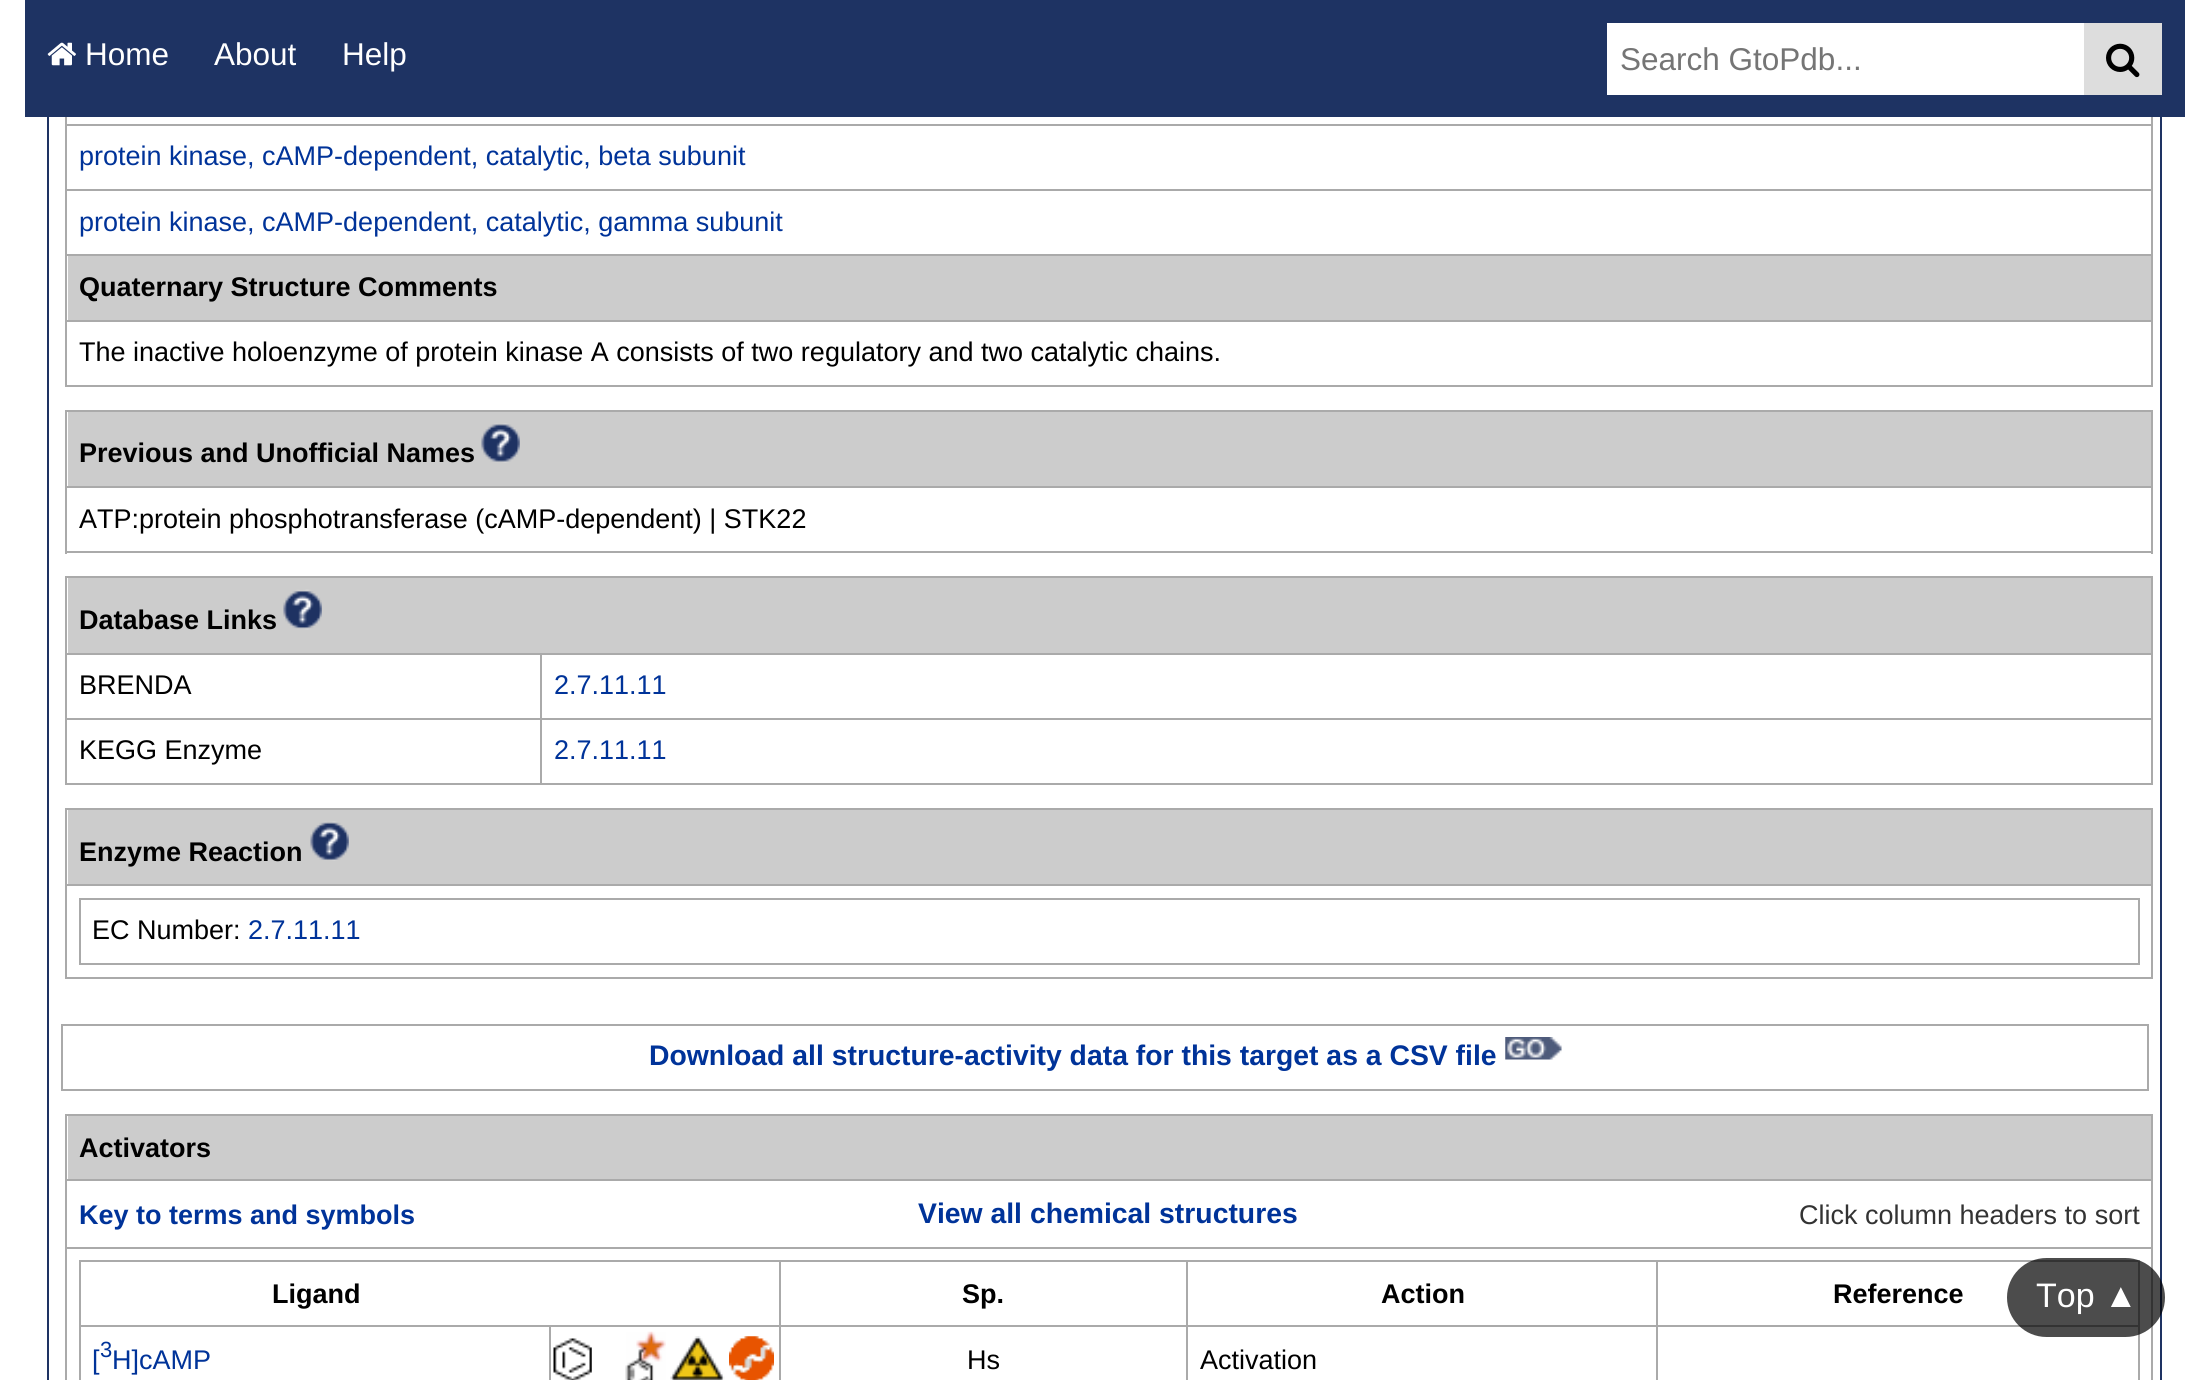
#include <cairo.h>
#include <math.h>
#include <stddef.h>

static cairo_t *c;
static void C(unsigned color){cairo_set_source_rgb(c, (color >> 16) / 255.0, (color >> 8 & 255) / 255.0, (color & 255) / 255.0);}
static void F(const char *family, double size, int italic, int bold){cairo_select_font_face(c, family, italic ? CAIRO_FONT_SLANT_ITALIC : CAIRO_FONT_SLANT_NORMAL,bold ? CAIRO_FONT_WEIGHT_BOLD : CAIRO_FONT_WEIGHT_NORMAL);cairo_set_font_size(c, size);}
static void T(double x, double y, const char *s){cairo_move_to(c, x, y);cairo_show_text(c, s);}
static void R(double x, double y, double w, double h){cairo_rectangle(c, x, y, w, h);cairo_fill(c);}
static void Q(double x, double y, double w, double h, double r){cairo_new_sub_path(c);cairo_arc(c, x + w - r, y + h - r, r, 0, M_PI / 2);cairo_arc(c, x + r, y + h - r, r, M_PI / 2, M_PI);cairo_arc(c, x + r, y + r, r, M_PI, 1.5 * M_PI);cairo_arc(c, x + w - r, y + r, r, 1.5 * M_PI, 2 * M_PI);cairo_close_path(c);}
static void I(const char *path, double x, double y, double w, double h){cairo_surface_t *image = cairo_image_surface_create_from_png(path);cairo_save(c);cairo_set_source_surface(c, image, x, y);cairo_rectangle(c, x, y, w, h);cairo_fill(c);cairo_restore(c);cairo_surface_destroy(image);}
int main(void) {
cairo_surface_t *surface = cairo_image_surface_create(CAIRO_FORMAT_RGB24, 2209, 1380);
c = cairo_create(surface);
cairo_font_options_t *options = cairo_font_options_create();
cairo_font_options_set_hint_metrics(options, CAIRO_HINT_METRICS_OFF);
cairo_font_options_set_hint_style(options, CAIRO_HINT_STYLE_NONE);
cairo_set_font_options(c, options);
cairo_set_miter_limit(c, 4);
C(0xffffff);
cairo_paint(c);
cairo_rectangle(c,48,-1,2113,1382);
C(0x1e3363);
cairo_stroke(c);
R(25,0,2160,117);
I("1.png",47,42,29,24);
F("Liberation Sans",31.5,0,0);
C(0xffffff);
T(85,65,"Home");
T(214,65,"About");
T(342,65,"Help");
R(1607,23,477,72);
C(0x757575);
T(1620,70,"Search GtoPdb...");
C(0xdddddd);
R(2084,23,78,72);
I("2.png",2106,43,34,35);
C(0xaaaaaa);
R(65,124,2088,2);
R(65,189,2088,2);
R(65,254,2088,2);
R(65,320,2088,2);
R(2151,320,2,67);
R(2151,254,2,68);
R(2151,189,2,68);
R(2151,117,2,74);
R(65,385,2088,2);
R(65,320,2,67);
R(65,254,2,68);
R(65,189,2,68);
R(65,117,2,74);
F("Liberation Sans",27,0,0);
C(0x003399);
T(79,165,"protein kinase, cAMP-dependent, catalytic, beta subunit");
T(79,231,"protein kinase, cAMP-dependent, catalytic, gamma subunit");
C(0xcccccc);
R(68,256,2083,64);
F("Liberation Sans",27,0,1);
C(0x000000);
T(79,296,"Quaternary Structure Comments");
F("Liberation Sans",27,0,0);
T(79,361,"The inactive holoenzyme of protein kinase A consists of two regulatory and two catalytic chains.");
C(0xcccccc);
R(68,412,2083,74);
C(0xaaaaaa);
R(65,410,2088,2);
R(65,486,2088,2);
R(2151,486,2,68);
R(2151,410,2,78);
R(65,551,2088,2);
R(65,486,2,68);
R(65,410,2,78);
F("Liberation Sans",27,0,1);
C(0x000000);
T(79,462,"Previous and Unofficial Names");
I("3.png",481,423,39,40);
F("Liberation Sans",27,0,0);
T(79,528,"ATP:protein phosphotransferase (cAMP-dependent) | STK22");
C(0xcccccc);
R(68,578,2083,75);
C(0xaaaaaa);
R(65,576,2088,2);
R(540,653,1613,2);
R(540,718,1613,2);
R(2151,718,2,67);
R(2151,653,2,67);
R(2151,576,2,79);
R(540,783,1613,2);
R(540,718,2,67);
R(65,718,477,2);
R(540,653,2,67);
R(65,653,477,2);
R(65,783,477,2);
R(65,718,2,67);
R(65,653,2,67);
R(65,576,2,79);
F("Liberation Sans",27,0,1);
C(0x000000);
T(79,629,"Database Links");
I("4.png",283,589,39,41);
F("Liberation Sans",27,0,0);
T(79,694,"BRENDA");
C(0x003399);
T(554,694,"2.7.11.11");
C(0x000000);
T(79,759,"KEGG Enzyme");
C(0x003399);
T(554,759,"2.7.11.11");
C(0xcccccc);
R(68,810,2083,74);
C(0xaaaaaa);
R(65,808,2088,2);
R(65,884,2088,2);
R(2151,884,2,95);
R(2151,808,2,79);
R(65,977,2088,2);
R(65,884,2,95);
R(65,808,2,79);
F("Liberation Sans",27,0,1);
C(0x000000);
T(79,861,"Enzyme Reaction");
I("5.png",310,821,39,40);
C(0xaaaaaa);
R(79,898,2061,2);
R(2138,898,2,67);
R(79,963,2061,2);
R(79,898,2,67);
F("Liberation Sans",27,0,0);
C(0x000000);
T(92,939,"EC Number:");
C(0x003399);
T(248,939,"2.7.11.11");
cairo_rectangle(c,62,1025,2086,65);
C(0xaaaaaa);
cairo_stroke(c);
F("Liberation Sans",28.35,0,1);
C(0x003399);
T(649,1065,"Download all structure-activity data for this target as a CSV file");
I("6.png",1505,1037,57,23);
C(0xcccccc);
R(68,1116,2083,63);
C(0xaaaaaa);
R(65,1114,2088,2);
R(65,1179,2088,2);
R(65,1247,2088,2);
R(2151,1247,2,133);
R(2151,1179,2,70);
R(2151,1114,2,67);
R(65,1247,2,133);
R(65,1179,2,70);
R(65,1114,2,67);
F("Liberation Sans",27,0,1);
C(0x000000);
T(79,1157,"Activators");
C(0x003399);
T(79,1224,"Key to terms and symbols");
F("Liberation Sans",28.35,0,1);
T(918,1223,"View all chemical structures");
F("Liberation Sans",27,0,0);
C(0x333333);
T(1799,1224,"Click column headers to sort");
C(0xaaaaaa);
R(79,1260,2061,2);
R(79,1325,2061,2);
R(2138,1325,2,55);
R(2138,1260,2,68);
R(79,1325,2,55);
R(79,1260,2,68);
F("Liberation Sans",27,0,1);
C(0x000000);
T(272,1303,"Ligand");
T(962,1303,"Sp.");
T(1381,1303,"Action");
T(1833,1303,"Reference");
F("Liberation Sans",27,0,0);
C(0x003399);
T(92,1369,"[");
F("Liberation Sans",22,0,0);
T(100,1357,"3");
F("Liberation Sans",27,0,0);
T(112,1369,"H]cAMP");
C(0xaaaaaa);
R(549,1325,2,55);
I("7.png",553,1338,39,42);
I("8.png",625,1331,41,49);
I("9.png",670,1336,55,44);
I("10.png",729,1336,45,44);
R(779,1260,2,120);
C(0x000000);
T(967,1369,"Hs");
C(0xaaaaaa);
R(1186,1260,2,120);
C(0x000000);
T(1200,1369,"Activation");
C(0xaaaaaa);
R(1656,1260,2,120);
cairo_set_source_rgba(c,0,0,0,0.7);
Q(2007,1258,158,79,39.5);
cairo_fill(c);
F("Liberation Sans",34,0,0);
C(0xffffff);
T(2036,1307,"Top ▲");
cairo_surface_write_to_png(surface, "o.png");
cairo_font_options_destroy(options);
cairo_destroy(c);
cairo_surface_destroy(surface);
return 0;
}
